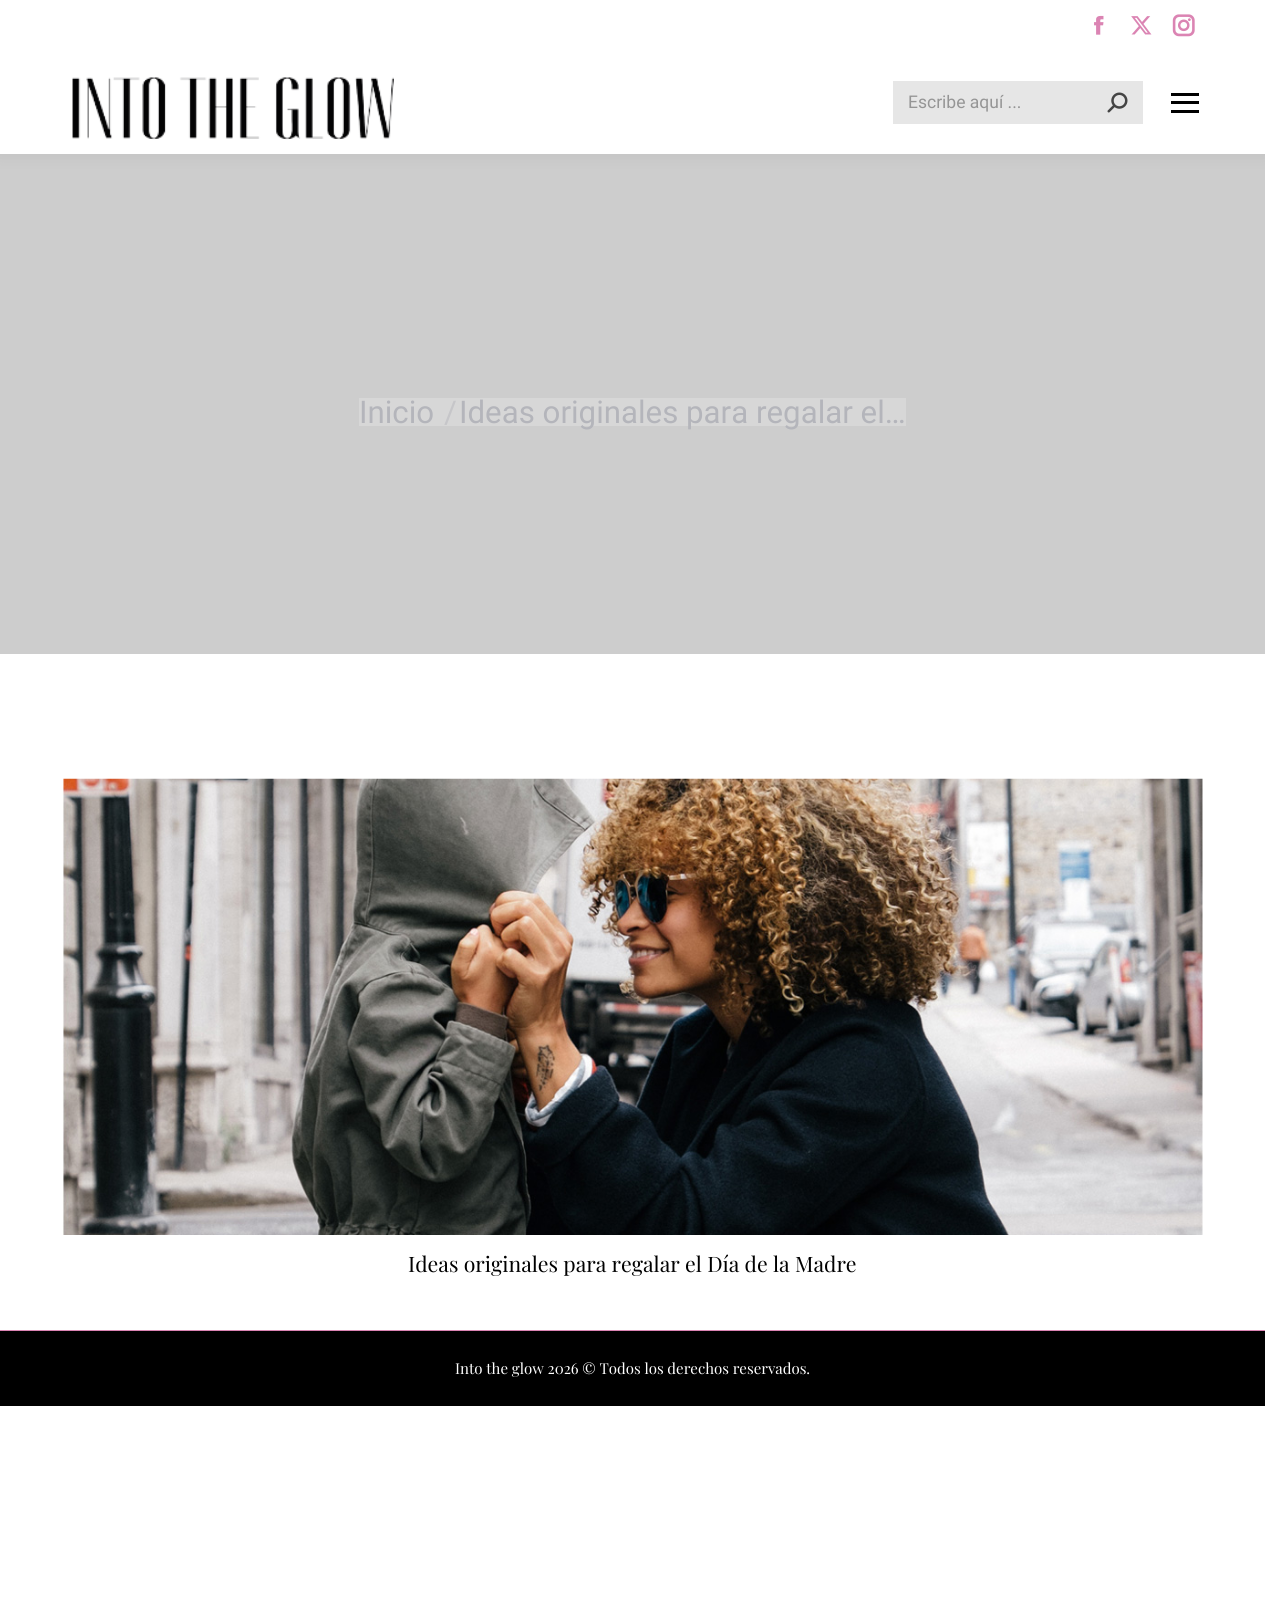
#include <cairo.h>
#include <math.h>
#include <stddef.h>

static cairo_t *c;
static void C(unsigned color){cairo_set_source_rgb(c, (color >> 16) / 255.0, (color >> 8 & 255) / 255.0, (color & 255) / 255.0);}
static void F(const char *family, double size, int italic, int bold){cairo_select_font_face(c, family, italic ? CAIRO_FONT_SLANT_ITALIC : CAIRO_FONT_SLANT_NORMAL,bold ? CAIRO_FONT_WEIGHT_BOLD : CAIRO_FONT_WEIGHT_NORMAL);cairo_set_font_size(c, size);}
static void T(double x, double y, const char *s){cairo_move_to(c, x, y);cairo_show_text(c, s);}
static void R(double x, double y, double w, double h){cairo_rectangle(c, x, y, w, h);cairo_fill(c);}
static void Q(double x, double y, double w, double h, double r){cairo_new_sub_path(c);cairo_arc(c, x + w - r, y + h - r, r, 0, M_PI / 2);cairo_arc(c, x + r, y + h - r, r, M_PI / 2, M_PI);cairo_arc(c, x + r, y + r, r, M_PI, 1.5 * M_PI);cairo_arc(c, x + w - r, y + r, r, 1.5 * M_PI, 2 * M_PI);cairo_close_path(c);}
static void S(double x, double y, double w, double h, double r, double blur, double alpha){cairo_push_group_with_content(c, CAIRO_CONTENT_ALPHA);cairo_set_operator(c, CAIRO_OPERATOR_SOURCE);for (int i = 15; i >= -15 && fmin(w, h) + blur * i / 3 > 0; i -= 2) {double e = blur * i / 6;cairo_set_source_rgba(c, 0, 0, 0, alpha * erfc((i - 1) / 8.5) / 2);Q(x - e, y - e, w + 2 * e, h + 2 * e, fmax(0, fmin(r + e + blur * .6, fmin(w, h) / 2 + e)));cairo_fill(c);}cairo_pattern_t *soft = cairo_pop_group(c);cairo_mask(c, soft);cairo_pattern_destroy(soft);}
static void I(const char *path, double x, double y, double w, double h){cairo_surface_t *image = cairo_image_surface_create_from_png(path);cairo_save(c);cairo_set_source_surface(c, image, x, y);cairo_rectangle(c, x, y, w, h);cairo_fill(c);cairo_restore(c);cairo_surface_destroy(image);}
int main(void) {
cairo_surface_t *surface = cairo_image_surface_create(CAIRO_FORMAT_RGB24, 1265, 1600);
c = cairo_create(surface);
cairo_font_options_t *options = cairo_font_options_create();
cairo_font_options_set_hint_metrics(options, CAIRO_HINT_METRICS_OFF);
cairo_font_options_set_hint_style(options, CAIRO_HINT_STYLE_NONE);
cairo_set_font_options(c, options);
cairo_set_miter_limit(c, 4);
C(0xffffff);
cairo_paint(c);
C(0xcdcdcd);
R(0,154,1265,500);
C(0x000000);
S(-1,-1,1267,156,0,9.5,.07);
C(0xffffff);
R(0,0,1265,154);
I("1.png",1094,15,10,20);
I("2.png",1131,16,21,19);
I("3.png",1172,14,23,23);
I("4.png",72,77,322,63);
C(0xe6e6e6);
R(893,81,250,43);
F("Roboto",17.5,0,0);
C(0x959595);
T(908,108,"Escribe aquí ...");
I("5.png",1107,92,21,21);
C(0x000000);
R(1171,93,28,3);
R(1171,101,28,3);
R(1171,110,28,3);
C(0xd7d7d7);
R(359,398,547,28);
F("Roboto",31.25,0,0);
C(0xb4b5bb);
T(359,423,"Inicio");
C(0xc6c6c9);
T(444,423,"/");
C(0xb4b5bb);
T(459,423,"Ideas originales para regalar el…");
I("6.png",62,778,1141,457);
F("Playfair Display",21.25,0,0);
C(0x000000);
T(408,1272,"Ideas originales para regalar el Día de la Madre");
R(0,1331,1265,75);
C(0xdb84b3);
R(0,1330,1265,1);
F("Playfair Display",15,0,0);
C(0xffffff);
T(455,1374,"Into the glow 2026 © Todos los derechos reservados.");
cairo_surface_write_to_png(surface, "o.png");
cairo_font_options_destroy(options);
cairo_destroy(c);
cairo_surface_destroy(surface);
return 0;
}
